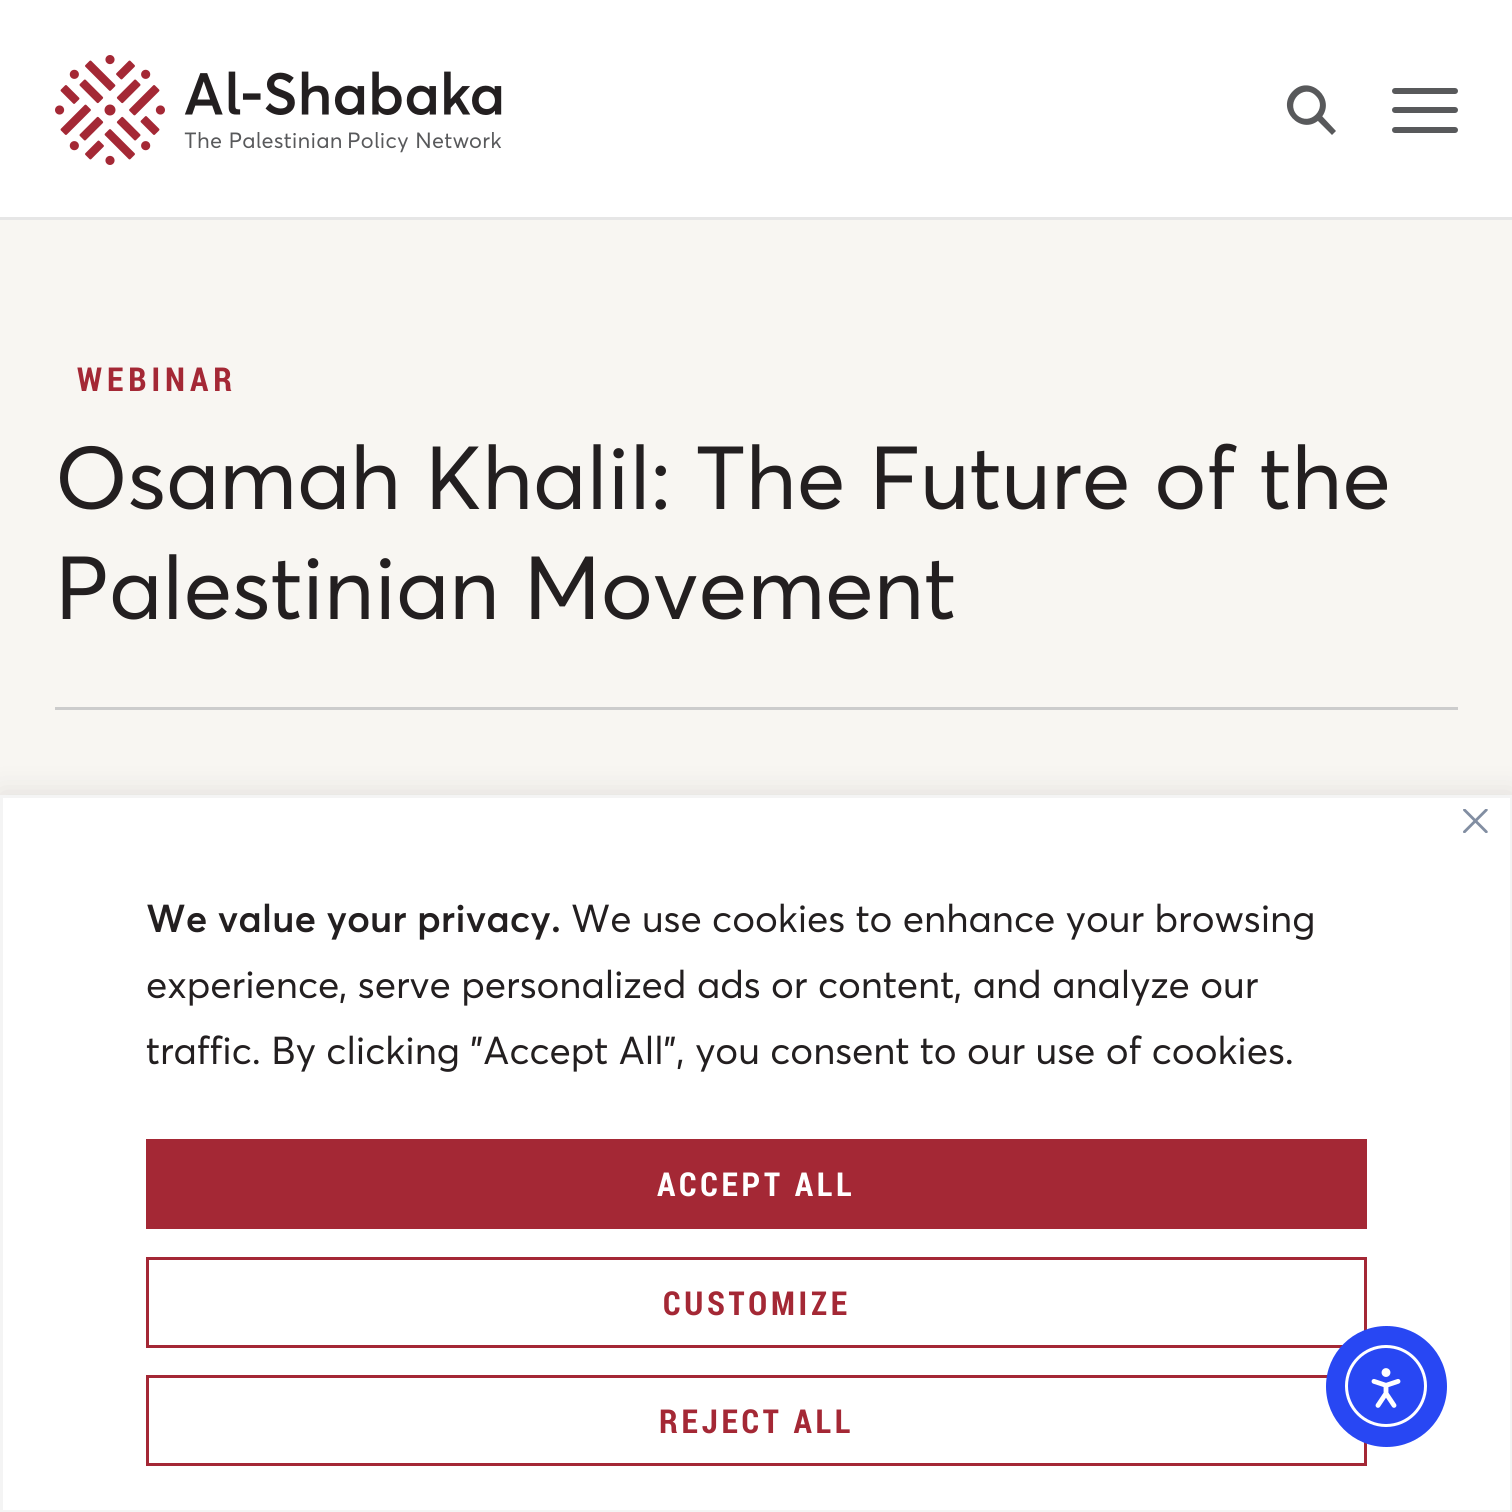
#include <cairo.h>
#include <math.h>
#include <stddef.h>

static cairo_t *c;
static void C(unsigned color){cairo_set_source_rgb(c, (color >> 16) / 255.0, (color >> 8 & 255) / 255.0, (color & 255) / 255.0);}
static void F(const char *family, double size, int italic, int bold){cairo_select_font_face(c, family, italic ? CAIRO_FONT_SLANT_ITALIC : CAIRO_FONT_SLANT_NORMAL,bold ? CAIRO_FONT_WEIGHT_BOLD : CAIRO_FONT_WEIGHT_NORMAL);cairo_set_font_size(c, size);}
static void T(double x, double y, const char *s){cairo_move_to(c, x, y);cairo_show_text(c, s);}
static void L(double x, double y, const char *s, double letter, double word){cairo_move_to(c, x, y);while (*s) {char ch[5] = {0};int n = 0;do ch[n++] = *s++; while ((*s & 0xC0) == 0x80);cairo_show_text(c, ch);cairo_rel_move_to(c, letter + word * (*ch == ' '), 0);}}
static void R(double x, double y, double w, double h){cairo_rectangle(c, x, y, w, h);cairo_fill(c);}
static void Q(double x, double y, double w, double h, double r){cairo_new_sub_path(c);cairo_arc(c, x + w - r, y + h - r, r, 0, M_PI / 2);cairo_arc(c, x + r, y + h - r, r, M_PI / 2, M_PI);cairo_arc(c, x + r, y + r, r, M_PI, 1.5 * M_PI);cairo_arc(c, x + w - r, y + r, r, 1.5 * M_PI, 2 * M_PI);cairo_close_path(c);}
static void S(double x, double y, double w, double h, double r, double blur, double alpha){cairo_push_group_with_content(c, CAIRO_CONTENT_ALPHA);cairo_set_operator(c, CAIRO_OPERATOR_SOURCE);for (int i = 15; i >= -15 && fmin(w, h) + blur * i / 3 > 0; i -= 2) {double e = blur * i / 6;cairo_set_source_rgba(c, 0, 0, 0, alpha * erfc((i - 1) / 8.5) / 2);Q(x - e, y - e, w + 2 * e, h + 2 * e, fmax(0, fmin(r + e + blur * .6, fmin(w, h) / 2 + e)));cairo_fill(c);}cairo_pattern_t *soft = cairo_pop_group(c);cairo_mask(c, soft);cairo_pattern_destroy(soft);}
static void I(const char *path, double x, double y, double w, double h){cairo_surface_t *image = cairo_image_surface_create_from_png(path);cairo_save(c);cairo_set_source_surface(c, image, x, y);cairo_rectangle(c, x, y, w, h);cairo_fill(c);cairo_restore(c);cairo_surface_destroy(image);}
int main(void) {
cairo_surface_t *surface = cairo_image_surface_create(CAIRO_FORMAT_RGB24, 1512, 1512);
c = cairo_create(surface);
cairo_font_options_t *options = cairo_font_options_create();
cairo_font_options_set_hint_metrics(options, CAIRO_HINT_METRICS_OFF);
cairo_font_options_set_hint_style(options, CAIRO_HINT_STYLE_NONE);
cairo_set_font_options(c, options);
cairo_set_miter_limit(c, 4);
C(0xf8f6f2);
cairo_paint(c);
C(0xffffff);
R(0,0,1512,217);
C(0xe6e6e6);
R(0,217,1512,3);
I("1.png",55,55,447,110);
C(0x58595b);
cairo_new_path(c);
cairo_move_to(c,1297,115);
cairo_curve_to(c,1310,127,1328,108,1316,96);
cairo_curve_to(c,1304,83,1285,102,1297,115);
cairo_close_path(c);
cairo_move_to(c,1321,115);
cairo_line_to(c,1336,131);
cairo_line_to(c,1332,135);
cairo_line_to(c,1316,119);
cairo_line_to(c,1317,118);
cairo_line_to(c,1319,120);
cairo_curve_to(c,1301,136,1275,109,1293,91);
cairo_curve_to(c,1310,74,1337,99,1321,118);
cairo_line_to(c,1319,116);
cairo_close_path(c);
cairo_fill(c);
Q(1392,88,66,6,3);
cairo_fill(c);
Q(1392,107,66,6,3);
cairo_fill(c);
Q(1392,127,66,6,3);
cairo_fill(c);
F("Roboto Condensed",33,0,1);
C(0xa42835);
L(77,391,"WEBINAR",5,0);
F("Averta",88,0,0);
C(0x231f20);
T(55,509,"Osamah Khalil: The Future of the");
T(55,619,"Palestinian Movement");
C(0xcccccc);
R(55,707,1403,3);
C(0xacabab);
S(0,792,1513,718,0,14,.3);
C(0xffffff);
cairo_rectangle(c,1.5,796.5,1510,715);
cairo_fill_preserve(c);
C(0xf4f4f4);
cairo_set_line_width(c,3);
cairo_stroke(c);
I("2.png",1463,809,25,24);
F("Averta SemiBold",38.5,0,0);
C(0x231f20);
T(146,932,"We value your privacy.");
F("Averta",38.5,0,0);
T(571,932,"We use cookies to enhance your browsing");
T(146,998,"experience, serve personalized ads or content, and analyze our");
T(146,1064,"traffic. By clicking \"Accept All\", you consent to our use of cookies.");
C(0xa42835);
R(146,1139,1221,90);
F("Roboto Condensed",33,0,1);
C(0xffffff);
L(657,1196,"ACCEPT ALL",3.75,0);
cairo_rectangle(c,147.5,1258.5,1218,88);
C(0xa42835);
cairo_stroke(c);
L(663,1315,"CUSTOMIZE",3.75,0);
cairo_rectangle(c,147.5,1376.5,1218,88);
cairo_stroke(c);
L(659,1433,"REJECT ALL",3.75,0);
C(0x2847f3);
cairo_new_path(c);
cairo_arc(c,1386.5,1386.5,60.5,0,2 * M_PI);
cairo_fill(c);
cairo_arc(c,1386,1386,39.5,0,2 * M_PI);
C(0xffffff);
cairo_stroke(c);
I("3.png",1371,1368,30,40);
cairo_surface_write_to_png(surface, "o.png");
cairo_font_options_destroy(options);
cairo_destroy(c);
cairo_surface_destroy(surface);
return 0;
}
